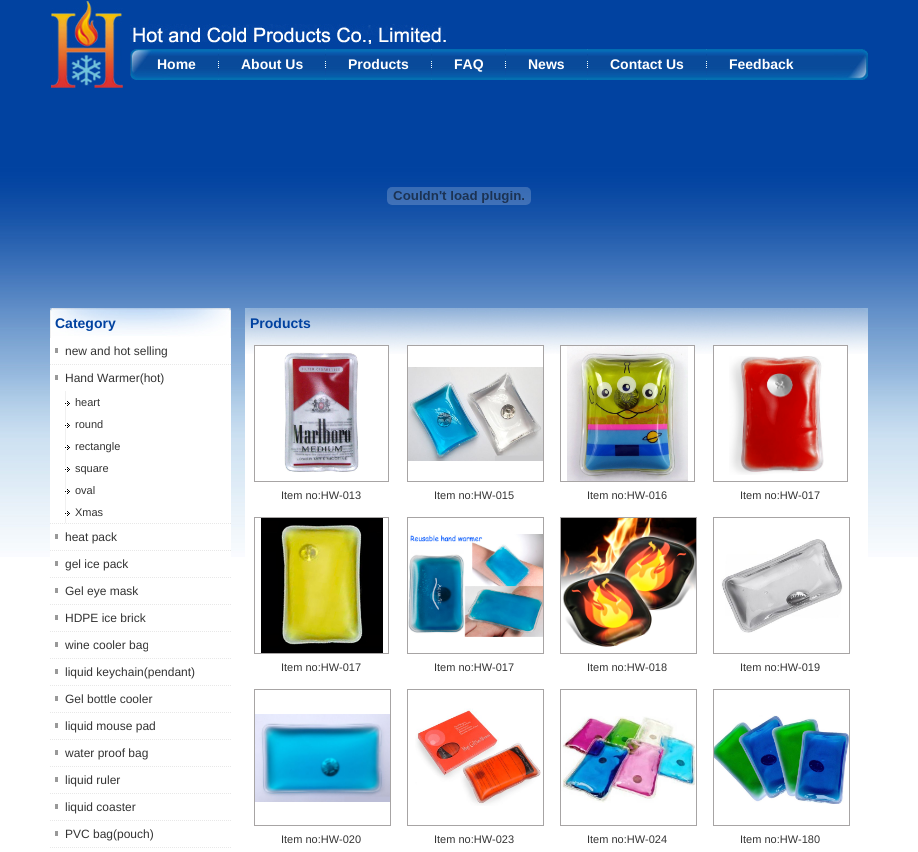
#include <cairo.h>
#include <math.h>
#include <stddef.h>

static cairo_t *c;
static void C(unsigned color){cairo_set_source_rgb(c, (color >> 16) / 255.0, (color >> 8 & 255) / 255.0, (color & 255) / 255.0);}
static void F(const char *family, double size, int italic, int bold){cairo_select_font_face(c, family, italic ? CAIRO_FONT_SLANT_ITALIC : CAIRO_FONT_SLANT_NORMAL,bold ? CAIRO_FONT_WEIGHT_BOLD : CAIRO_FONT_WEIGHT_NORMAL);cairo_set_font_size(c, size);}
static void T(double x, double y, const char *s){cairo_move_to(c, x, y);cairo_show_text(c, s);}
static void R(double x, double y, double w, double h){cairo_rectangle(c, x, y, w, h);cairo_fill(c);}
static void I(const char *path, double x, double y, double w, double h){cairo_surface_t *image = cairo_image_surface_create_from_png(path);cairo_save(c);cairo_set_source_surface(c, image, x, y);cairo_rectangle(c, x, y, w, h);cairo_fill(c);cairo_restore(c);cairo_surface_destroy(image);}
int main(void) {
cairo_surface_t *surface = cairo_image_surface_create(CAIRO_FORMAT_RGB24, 918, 852);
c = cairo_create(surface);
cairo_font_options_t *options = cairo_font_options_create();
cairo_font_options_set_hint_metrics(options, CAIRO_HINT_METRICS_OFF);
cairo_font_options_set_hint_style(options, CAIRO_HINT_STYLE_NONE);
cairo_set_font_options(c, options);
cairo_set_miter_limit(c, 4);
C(0xffffff);
cairo_paint(c);
I("1.png",0,0,918,557);
I("2.png",51,1,72,87);
I("3.png",130,24,316,20);
I("4.png",130,49,738,31);
F("Liberation Sans",14,0,1);
C(0xffffff);
T(157,69,"Home");
I("5.png",218,49,1,31);
T(241,69,"About Us");
I("5.png",325,49,1,31);
T(348,69,"Products");
I("5.png",431,49,1,31);
T(454,69,"FAQ");
I("5.png",505,49,1,31);
T(528,69,"News");
I("5.png",587,49,1,31);
T(610,69,"Contact Us");
I("5.png",706,49,1,31);
T(729,69,"Feedback");
I("6.png",387,187,144,18);
I("7.png",50,308,181,30);
C(0x0142a0);
T(55,328,"Category");
C(0xffffff);
R(50,338,181,219);
C(0x999999);
R(55,348,3,5);
cairo_new_path(c);
cairo_move_to(c,50,364.5);
cairo_line_to(c,231,364.5);
C(0xe8e8e8);
cairo_set_line_width(c,1);
cairo_set_dash(c,(double[]){1,1},2,0);
cairo_stroke(c);
F("Liberation Sans",12,0,0);
C(0x333333);
T(65,355,"new and hot selling");
C(0x999999);
R(55,375,3,5);
cairo_new_path(c);
cairo_move_to(c,50,523.5);
cairo_line_to(c,231,523.5);
C(0xe8e8e8);
cairo_stroke(c);
C(0x333333);
T(65,382,"Hand Warmer(hot)");
C(0xf0f0f0);
R(65,391,1,132);
I("8.png",65,401,5,5);
F("Liberation Sans",11,0,0);
C(0x333333);
T(75,406,"heart");
I("8.png",65,423,5,5);
T(75,428,"round");
I("8.png",65,445,5,5);
T(75,450,"rectangle");
I("8.png",65,467,5,5);
T(75,472,"square");
I("8.png",65,489,5,5);
T(75,494,"oval");
I("8.png",65,511,5,5);
T(75,516,"Xmas");
C(0x999999);
R(55,534,3,5);
cairo_new_path(c);
cairo_move_to(c,50,550.5);
cairo_line_to(c,231,550.5);
C(0xe8e8e8);
cairo_stroke(c);
F("Liberation Sans",12,0,0);
C(0x333333);
T(65,541,"heat pack");
C(0x999999);
R(55,561,3,5);
cairo_new_path(c);
cairo_move_to(c,50,577.5);
cairo_line_to(c,231,577.5);
C(0xe8e8e8);
cairo_stroke(c);
C(0x333333);
T(65,568,"gel ice pack");
C(0x999999);
R(55,588,3,5);
cairo_new_path(c);
cairo_move_to(c,50,604.5);
cairo_line_to(c,231,604.5);
C(0xe8e8e8);
cairo_stroke(c);
C(0x333333);
T(65,595,"Gel eye mask");
C(0x999999);
R(55,615,3,5);
cairo_new_path(c);
cairo_move_to(c,50,631.5);
cairo_line_to(c,231,631.5);
C(0xe8e8e8);
cairo_stroke(c);
C(0x333333);
T(65,622,"HDPE ice brick");
C(0x999999);
R(55,642,3,5);
cairo_new_path(c);
cairo_move_to(c,50,658.5);
cairo_line_to(c,231,658.5);
C(0xe8e8e8);
cairo_stroke(c);
C(0x333333);
T(65,649,"wine cooler bag");
C(0x999999);
R(55,669,3,5);
cairo_new_path(c);
cairo_move_to(c,50,685.5);
cairo_line_to(c,231,685.5);
C(0xe8e8e8);
cairo_stroke(c);
C(0x333333);
T(65,676,"liquid keychain(pendant)");
C(0x999999);
R(55,696,3,5);
cairo_new_path(c);
cairo_move_to(c,50,712.5);
cairo_line_to(c,231,712.5);
C(0xe8e8e8);
cairo_stroke(c);
C(0x333333);
T(65,703,"Gel bottle cooler");
C(0x999999);
R(55,723,3,5);
cairo_new_path(c);
cairo_move_to(c,50,739.5);
cairo_line_to(c,231,739.5);
C(0xe8e8e8);
cairo_stroke(c);
C(0x333333);
T(65,730,"liquid mouse pad");
C(0x999999);
R(55,750,3,5);
cairo_new_path(c);
cairo_move_to(c,50,766.5);
cairo_line_to(c,231,766.5);
C(0xe8e8e8);
cairo_stroke(c);
C(0x333333);
T(65,757,"water proof bag");
C(0x999999);
R(55,777,3,5);
cairo_new_path(c);
cairo_move_to(c,50,793.5);
cairo_line_to(c,231,793.5);
C(0xe8e8e8);
cairo_stroke(c);
C(0x333333);
T(65,784,"liquid ruler");
C(0x999999);
R(55,804,3,5);
cairo_new_path(c);
cairo_move_to(c,50,820.5);
cairo_line_to(c,231,820.5);
C(0xe8e8e8);
cairo_stroke(c);
C(0x333333);
T(65,811,"liquid coaster");
C(0x999999);
R(55,831,3,5);
cairo_new_path(c);
cairo_move_to(c,50,847.5);
cairo_line_to(c,231,847.5);
C(0xe8e8e8);
cairo_stroke(c);
C(0x333333);
T(65,838,"PVC bag(pouch)");
C(0xffffff);
R(245,354,623,203);
I("9.png",245,308,623,46);
F("Liberation Sans",14,0,1);
C(0x0142a0);
T(250,328,"Products");
C(0xffffff);
R(255,346,133,8);
cairo_rectangle(c,254.5,345.5,134,136);
C(0xa7a4a4);
cairo_set_dash(c,NULL,0,0);
cairo_stroke(c);
I("10.png",284,352,75,120);
F("Liberation Sans",11,0,0);
C(0x333333);
T(281,499,"Item no:HW-013");
C(0xffffff);
R(408,346,135,8);
cairo_rectangle(c,407.5,345.5,136,136);
C(0xa7a4a4);
cairo_stroke(c);
I("11.png",408,367,135,94);
C(0x333333);
T(434,499,"Item no:HW-015");
C(0xffffff);
R(561,346,133,8);
cairo_rectangle(c,560.5,345.5,134,136);
C(0xa7a4a4);
cairo_stroke(c);
I("12.png",567,346,121,135);
C(0x333333);
T(587,499,"Item no:HW-016");
C(0xffffff);
R(714,346,133,8);
cairo_rectangle(c,713.5,345.5,134,136);
C(0xa7a4a4);
cairo_stroke(c);
I("13.png",729,356,95,119);
C(0x333333);
T(740,499,"Item no:HW-017");
cairo_rectangle(c,254.5,517.5,134,136);
C(0xa7a4a4);
cairo_stroke(c);
I("14.png",261,518,122,135);
C(0x333333);
T(281,671,"Item no:HW-017");
cairo_rectangle(c,407.5,517.5,136,136);
C(0xa7a4a4);
cairo_stroke(c);
I("15.png",408,534,135,103);
C(0x333333);
T(434,671,"Item no:HW-017");
cairo_rectangle(c,560.5,517.5,136,136);
C(0xa7a4a4);
cairo_stroke(c);
I("16.png",561,518,135,129);
C(0x333333);
T(587,671,"Item no:HW-018");
cairo_rectangle(c,713.5,517.5,136,136);
C(0xa7a4a4);
cairo_stroke(c);
I("17.png",721,539,122,94);
C(0x333333);
T(740,671,"Item no:HW-019");
cairo_rectangle(c,254.5,689.5,136,136);
C(0xa7a4a4);
cairo_stroke(c);
I("18.png",255,714,135,88);
C(0x333333);
T(281,843,"Item no:HW-020");
cairo_rectangle(c,407.5,689.5,136,136);
C(0xa7a4a4);
cairo_stroke(c);
I("19.png",415,708,126,98);
C(0x333333);
T(434,843,"Item no:HW-023");
cairo_rectangle(c,560.5,689.5,136,136);
C(0xa7a4a4);
cairo_stroke(c);
I("20.png",561,716,135,87);
C(0x333333);
T(587,843,"Item no:HW-024");
cairo_rectangle(c,713.5,689.5,136,136);
C(0xa7a4a4);
cairo_stroke(c);
I("21.png",714,715,135,89);
C(0x333333);
T(740,843,"Item no:HW-180");
cairo_surface_write_to_png(surface, "o.png");
cairo_font_options_destroy(options);
cairo_destroy(c);
cairo_surface_destroy(surface);
return 0;
}
